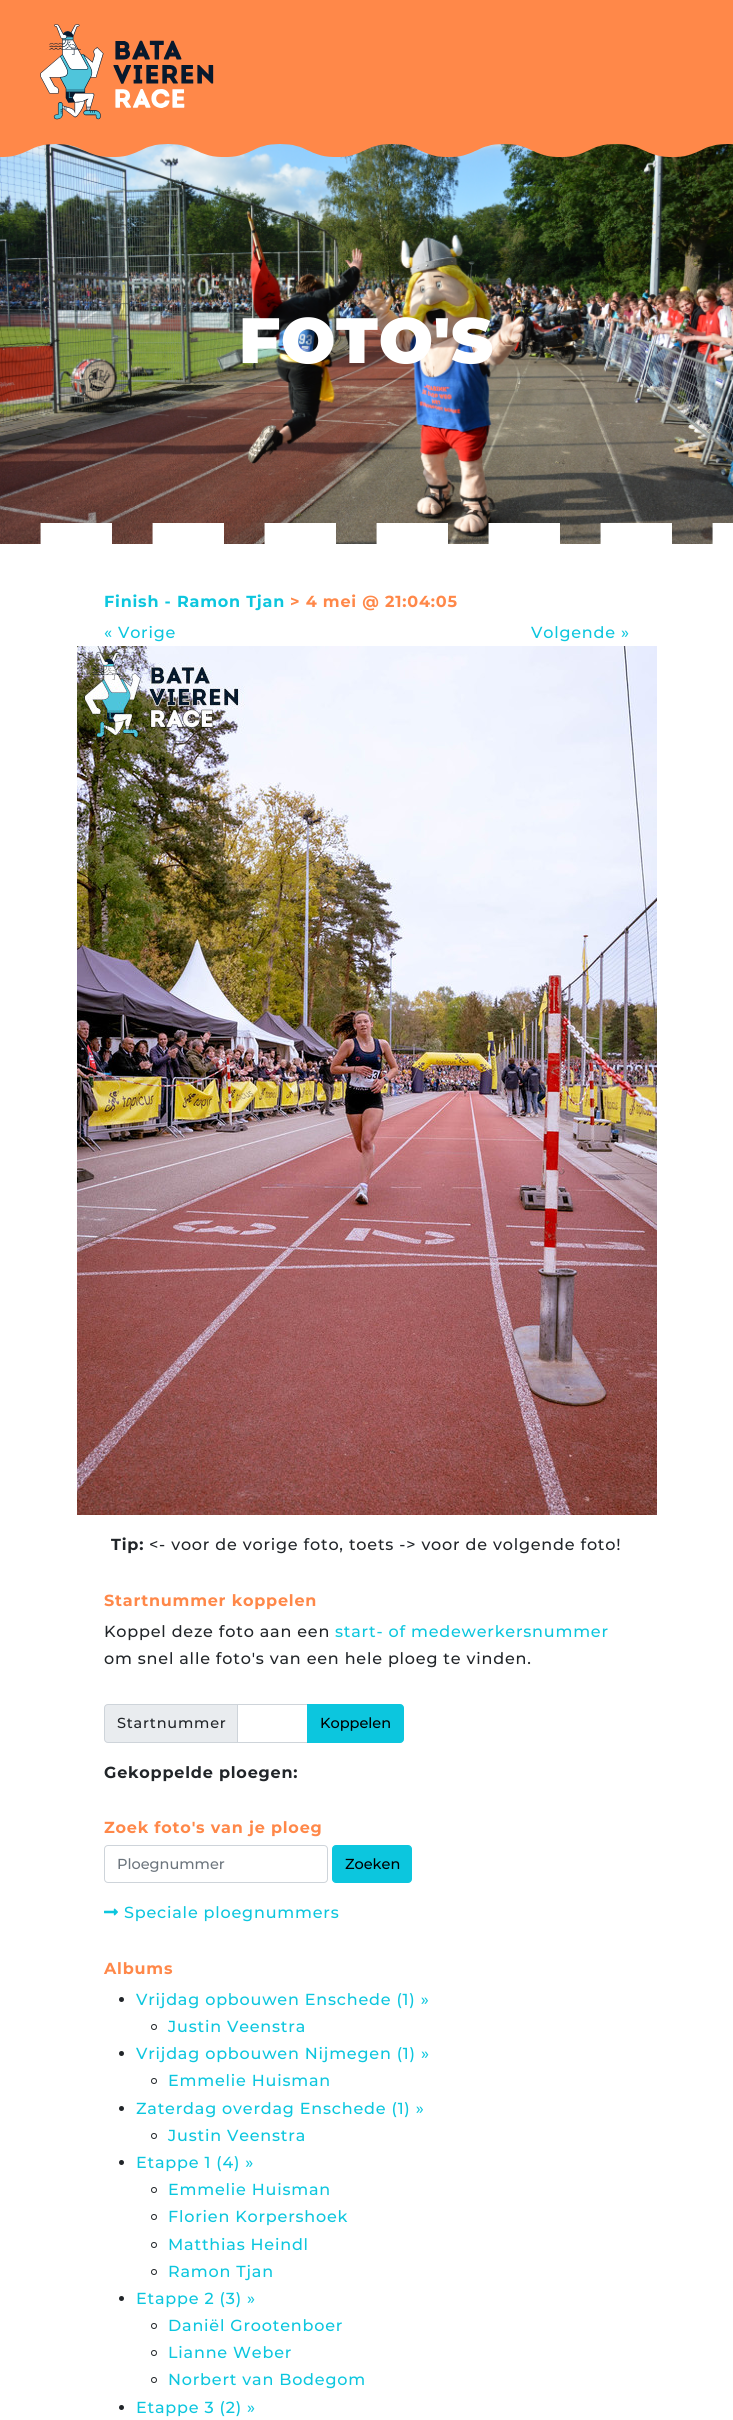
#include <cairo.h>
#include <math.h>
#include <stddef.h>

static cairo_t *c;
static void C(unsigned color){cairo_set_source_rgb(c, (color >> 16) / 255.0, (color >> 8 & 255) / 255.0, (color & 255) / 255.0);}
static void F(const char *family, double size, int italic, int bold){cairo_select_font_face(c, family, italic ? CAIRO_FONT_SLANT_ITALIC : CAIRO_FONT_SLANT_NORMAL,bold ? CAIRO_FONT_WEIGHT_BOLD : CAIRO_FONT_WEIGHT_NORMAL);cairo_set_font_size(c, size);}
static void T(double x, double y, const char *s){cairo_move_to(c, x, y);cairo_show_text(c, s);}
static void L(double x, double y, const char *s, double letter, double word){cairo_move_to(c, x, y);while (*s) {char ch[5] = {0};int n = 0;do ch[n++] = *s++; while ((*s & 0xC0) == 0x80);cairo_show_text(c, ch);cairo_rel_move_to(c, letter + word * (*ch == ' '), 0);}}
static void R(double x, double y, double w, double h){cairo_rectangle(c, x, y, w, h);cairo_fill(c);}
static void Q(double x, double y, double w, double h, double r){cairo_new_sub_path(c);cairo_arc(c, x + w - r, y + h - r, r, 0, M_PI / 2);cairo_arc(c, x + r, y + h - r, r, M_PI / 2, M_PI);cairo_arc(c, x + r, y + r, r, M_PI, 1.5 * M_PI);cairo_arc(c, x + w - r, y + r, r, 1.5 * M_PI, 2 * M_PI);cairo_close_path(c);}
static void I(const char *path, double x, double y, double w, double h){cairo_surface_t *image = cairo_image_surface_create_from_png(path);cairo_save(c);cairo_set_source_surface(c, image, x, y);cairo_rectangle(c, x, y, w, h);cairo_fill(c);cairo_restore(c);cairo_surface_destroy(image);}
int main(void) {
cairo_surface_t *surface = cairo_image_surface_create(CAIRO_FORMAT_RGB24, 733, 2420);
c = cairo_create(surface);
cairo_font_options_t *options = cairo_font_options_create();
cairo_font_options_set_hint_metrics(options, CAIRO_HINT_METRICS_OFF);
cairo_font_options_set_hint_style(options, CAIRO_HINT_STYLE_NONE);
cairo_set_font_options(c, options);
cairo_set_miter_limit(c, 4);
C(0xffffff);
cairo_paint(c);
C(0xff8849);
R(0,0,733,144);
I("1.png",40,24,174,96);
I("3.png",0,144,733,400);
I("2.png",0,144,733,13);
F("Montserrat Black",64,0,0);
C(0xffffff);
L(239,363,"FOTO'S",.8,0);
I("4.png",40,523,693,21);
F("Montserrat",16,0,1);
C(0x0cc6de);
L(104,607,"Finish - Ramon Tjan",.8,0);
C(0xff8849);
L(290,607,"> 4 mei @ 21:04:05",.8,0);
F("Montserrat Medium",16,0,0);
C(0x0cc6de);
L(104,638,"« Vorige",.8,0);
L(531,638,"Volgende »",.8,0);
I("5.png",77,646,580,869);
F("Montserrat",16,0,1);
C(0x212529);
L(111,1550,"Tip:",.8,0);
F("Montserrat Medium",16,0,0);
L(149,1550,"<- voor de vorige foto, toets -> voor de volgende foto!",.8,0);
F("Montserrat",16,0,1);
C(0xff8849);
L(104,1606,"Startnummer koppelen",.8,0);
F("Montserrat Medium",16,0,0);
C(0x212529);
L(104,1637,"Koppel deze foto aan een",.8,0);
C(0x0cc6de);
L(335,1637,"start- of medewerkersnummer",.8,0);
C(0x212529);
L(104,1664,"om snel alle foto's van een hele ploeg te vinden.",.8,0);
C(0xe9ecef);
cairo_new_path(c);
cairo_move_to(c,108,1704.5);
cairo_line_to(c,237.5,1704.5);
cairo_line_to(c,237.5,1742.5);
cairo_line_to(c,108,1742.5);
cairo_curve_to(c,106,1742.5,104.5,1741,104.5,1739);
cairo_line_to(c,104.5,1708);
cairo_curve_to(c,104.5,1706,106,1704.5,108,1704.5);
cairo_close_path(c);
cairo_fill_preserve(c);
C(0xced4da);
cairo_set_line_width(c,1);
cairo_stroke(c);
F("Montserrat Medium",14.5,0,0);
C(0x212529);
L(117,1728,"Startnummer",.8,0);
cairo_rectangle(c,237.5,1704.5,70,38);
C(0xced4da);
cairo_stroke(c);
C(0x0cc6de);
cairo_new_path(c);
cairo_move_to(c,307.5,1704.5);
cairo_line_to(c,400,1704.5);
cairo_curve_to(c,402,1704.5,403.5,1706,403.5,1708);
cairo_line_to(c,403.5,1739);
cairo_curve_to(c,403.5,1741,402,1742.5,400,1742.5);
cairo_line_to(c,307.5,1742.5);
cairo_close_path(c);
cairo_fill_preserve(c);
cairo_stroke(c);
C(0x000000);
T(320,1728,"Koppelen");
F("Montserrat",16,0,1);
C(0x212529);
L(104,1778,"Gekoppelde ploegen:",.8,0);
C(0xff8849);
L(104,1833,"Zoek foto's van je ploeg",.8,0);
Q(104.5,1845.5,223,37,3.5);
C(0xced4da);
cairo_stroke(c);
F("Montserrat Medium",14.5,0,0);
C(0x6c757d);
T(117,1869,"Ploegnummer");
C(0x0cc6de);
Q(332.5,1845.5,79,37,3.5);
cairo_fill_preserve(c);
cairo_stroke(c);
C(0x000000);
T(345,1869,"Zoeken");
I("6.png",104,1908,14,8);
F("Montserrat Medium",16,0,0);
C(0x0cc6de);
L(124,1918,"Speciale ploegnummers",.8,0);
F("Montserrat",16,0,1);
C(0xff8849);
L(104,1974,"Albums",.8,0);
C(0x212529);
cairo_new_path(c);
cairo_arc(c,121.5,1999.5,2.5,0,2 * M_PI);
cairo_fill(c);
F("Montserrat Medium",16,0,0);
C(0x0cc6de);
L(136,2005,"Vrijdag opbouwen Enschede (1) »",.8,0);
cairo_new_path(c);
cairo_arc(c,154,2027,2.5,0,2 * M_PI);
C(0x212529);
cairo_stroke(c);
C(0x0cc6de);
L(168,2032,"Justin Veenstra",.8,0);
C(0x212529);
cairo_new_path(c);
cairo_arc(c,121.5,2053.5,2.5,0,2 * M_PI);
cairo_fill(c);
C(0x0cc6de);
L(136,2059,"Vrijdag opbouwen Nijmegen (1) »",.8,0);
cairo_new_path(c);
cairo_arc(c,154,2081,2.5,0,2 * M_PI);
C(0x212529);
cairo_stroke(c);
C(0x0cc6de);
L(168,2086,"Emmelie Huisman",.8,0);
C(0x212529);
cairo_new_path(c);
cairo_arc(c,121.5,2108.5,2.5,0,2 * M_PI);
cairo_fill(c);
C(0x0cc6de);
L(136,2114,"Zaterdag overdag Enschede (1) »",.8,0);
cairo_new_path(c);
cairo_arc(c,154,2136,2.5,0,2 * M_PI);
C(0x212529);
cairo_stroke(c);
C(0x0cc6de);
L(168,2141,"Justin Veenstra",.8,0);
C(0x212529);
cairo_new_path(c);
cairo_arc(c,121.5,2162.5,2.5,0,2 * M_PI);
cairo_fill(c);
C(0x0cc6de);
L(136,2168,"Etappe 1 (4) »",.8,0);
cairo_new_path(c);
cairo_arc(c,154,2190,2.5,0,2 * M_PI);
C(0x212529);
cairo_stroke(c);
C(0x0cc6de);
L(168,2195,"Emmelie Huisman",.8,0);
cairo_new_path(c);
cairo_arc(c,154,2217,2.5,0,2 * M_PI);
C(0x212529);
cairo_stroke(c);
C(0x0cc6de);
L(168,2222,"Florien Korpershoek",.8,0);
cairo_new_path(c);
cairo_arc(c,154,2245,2.5,0,2 * M_PI);
C(0x212529);
cairo_stroke(c);
C(0x0cc6de);
L(168,2250,"Matthias Heindl",.8,0);
cairo_new_path(c);
cairo_arc(c,154,2272,2.5,0,2 * M_PI);
C(0x212529);
cairo_stroke(c);
C(0x0cc6de);
L(168,2277,"Ramon Tjan",.8,0);
C(0x212529);
cairo_new_path(c);
cairo_arc(c,121.5,2298.5,2.5,0,2 * M_PI);
cairo_fill(c);
C(0x0cc6de);
L(136,2304,"Etappe 2 (3) »",.8,0);
cairo_new_path(c);
cairo_arc(c,154,2326,2.5,0,2 * M_PI);
C(0x212529);
cairo_stroke(c);
C(0x0cc6de);
L(168,2331,"Daniël Grootenboer",.8,0);
cairo_new_path(c);
cairo_arc(c,154,2353,2.5,0,2 * M_PI);
C(0x212529);
cairo_stroke(c);
C(0x0cc6de);
L(168,2358,"Lianne Weber",.8,0);
cairo_new_path(c);
cairo_arc(c,154,2380,2.5,0,2 * M_PI);
C(0x212529);
cairo_stroke(c);
C(0x0cc6de);
L(168,2385,"Norbert van Bodegom",.8,0);
C(0x212529);
cairo_new_path(c);
cairo_arc(c,121.5,2407.5,2.5,0,2 * M_PI);
cairo_fill(c);
C(0x0cc6de);
L(136,2413,"Etappe 3 (2) »",.8,0);
cairo_surface_write_to_png(surface, "o.png");
cairo_font_options_destroy(options);
cairo_destroy(c);
cairo_surface_destroy(surface);
return 0;
}
